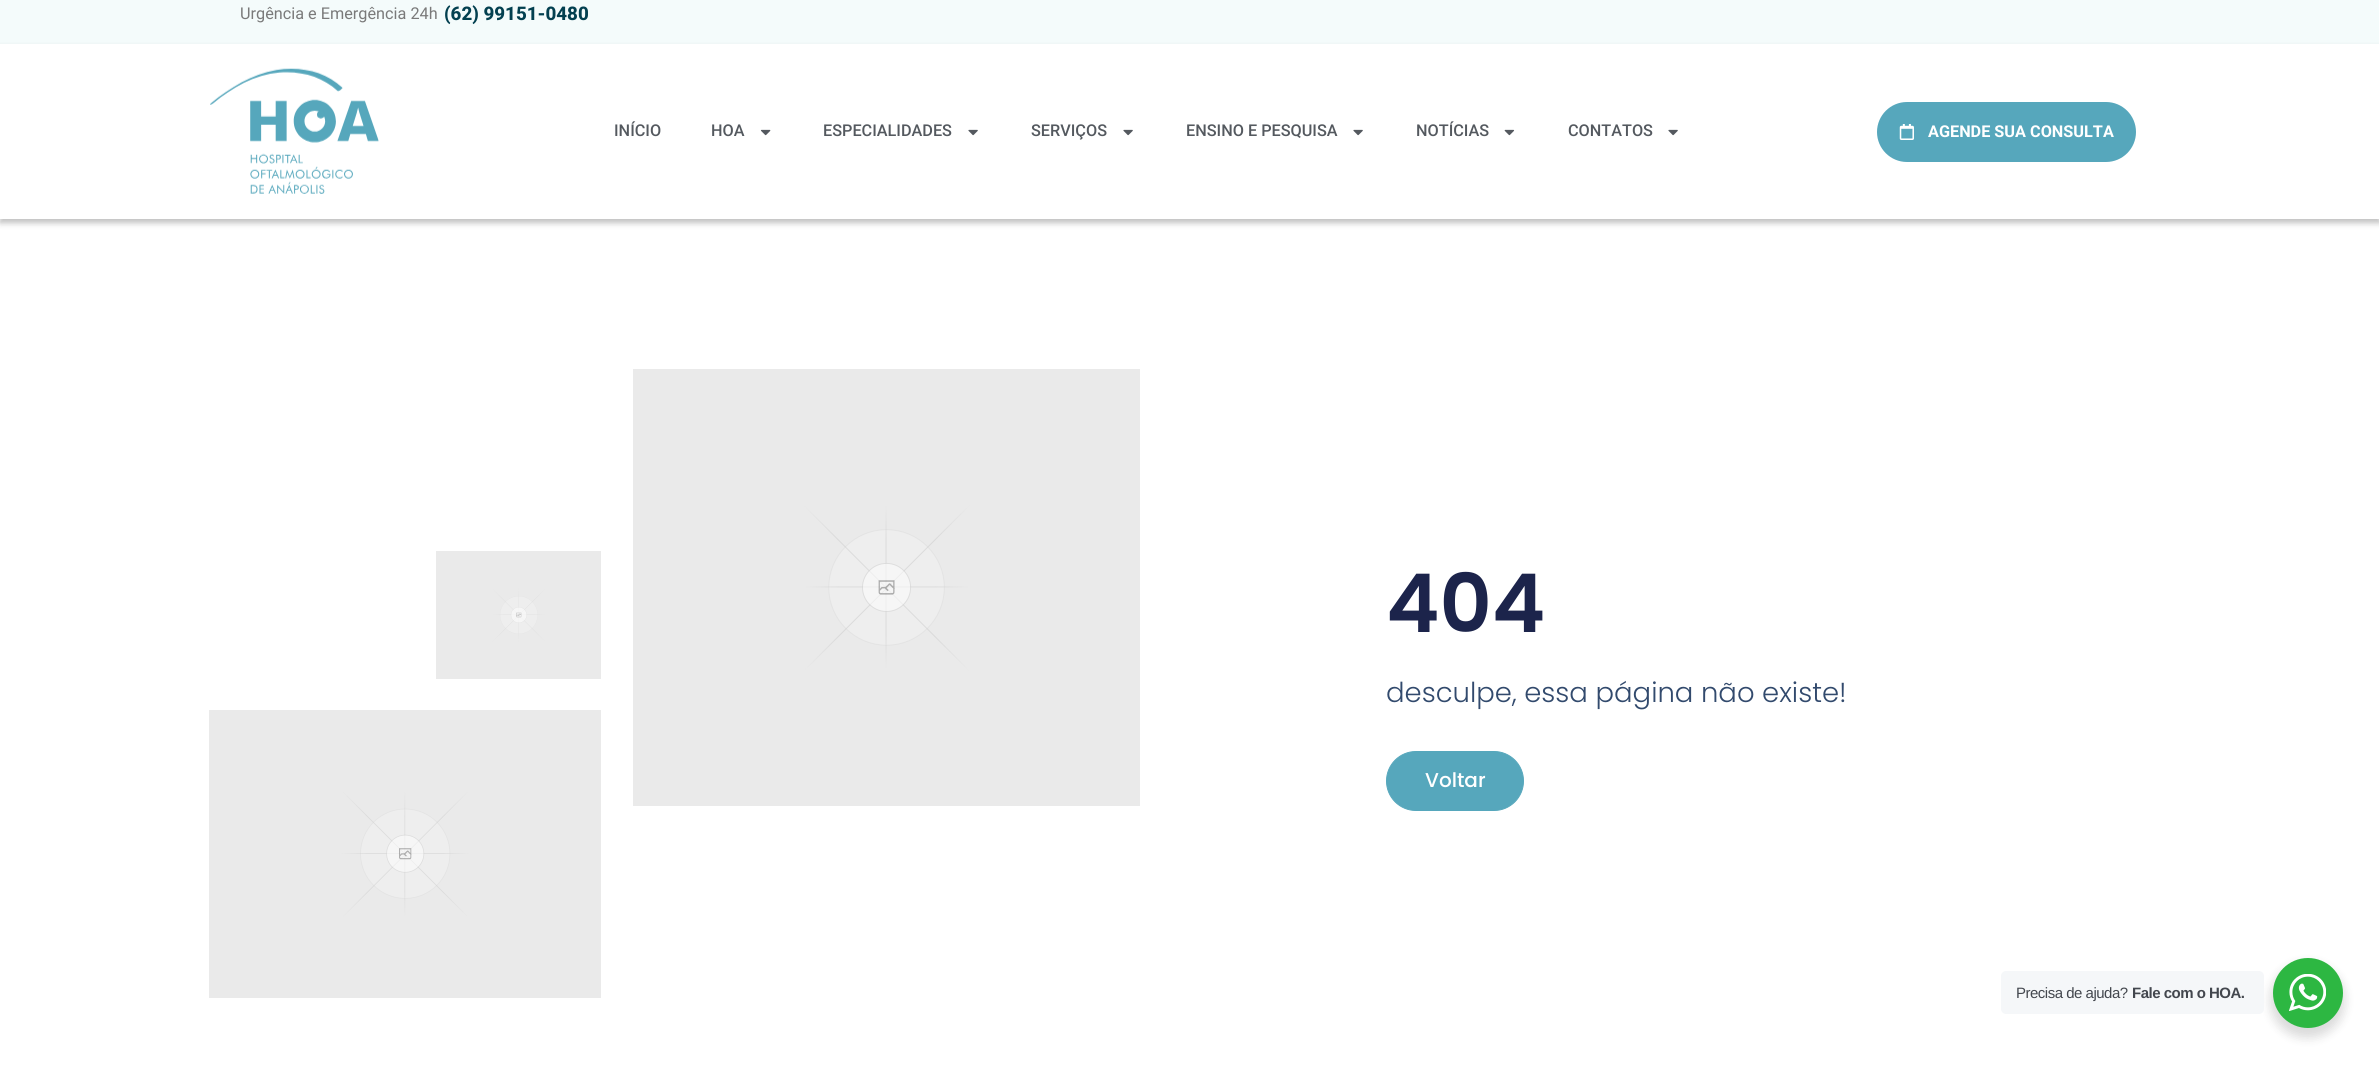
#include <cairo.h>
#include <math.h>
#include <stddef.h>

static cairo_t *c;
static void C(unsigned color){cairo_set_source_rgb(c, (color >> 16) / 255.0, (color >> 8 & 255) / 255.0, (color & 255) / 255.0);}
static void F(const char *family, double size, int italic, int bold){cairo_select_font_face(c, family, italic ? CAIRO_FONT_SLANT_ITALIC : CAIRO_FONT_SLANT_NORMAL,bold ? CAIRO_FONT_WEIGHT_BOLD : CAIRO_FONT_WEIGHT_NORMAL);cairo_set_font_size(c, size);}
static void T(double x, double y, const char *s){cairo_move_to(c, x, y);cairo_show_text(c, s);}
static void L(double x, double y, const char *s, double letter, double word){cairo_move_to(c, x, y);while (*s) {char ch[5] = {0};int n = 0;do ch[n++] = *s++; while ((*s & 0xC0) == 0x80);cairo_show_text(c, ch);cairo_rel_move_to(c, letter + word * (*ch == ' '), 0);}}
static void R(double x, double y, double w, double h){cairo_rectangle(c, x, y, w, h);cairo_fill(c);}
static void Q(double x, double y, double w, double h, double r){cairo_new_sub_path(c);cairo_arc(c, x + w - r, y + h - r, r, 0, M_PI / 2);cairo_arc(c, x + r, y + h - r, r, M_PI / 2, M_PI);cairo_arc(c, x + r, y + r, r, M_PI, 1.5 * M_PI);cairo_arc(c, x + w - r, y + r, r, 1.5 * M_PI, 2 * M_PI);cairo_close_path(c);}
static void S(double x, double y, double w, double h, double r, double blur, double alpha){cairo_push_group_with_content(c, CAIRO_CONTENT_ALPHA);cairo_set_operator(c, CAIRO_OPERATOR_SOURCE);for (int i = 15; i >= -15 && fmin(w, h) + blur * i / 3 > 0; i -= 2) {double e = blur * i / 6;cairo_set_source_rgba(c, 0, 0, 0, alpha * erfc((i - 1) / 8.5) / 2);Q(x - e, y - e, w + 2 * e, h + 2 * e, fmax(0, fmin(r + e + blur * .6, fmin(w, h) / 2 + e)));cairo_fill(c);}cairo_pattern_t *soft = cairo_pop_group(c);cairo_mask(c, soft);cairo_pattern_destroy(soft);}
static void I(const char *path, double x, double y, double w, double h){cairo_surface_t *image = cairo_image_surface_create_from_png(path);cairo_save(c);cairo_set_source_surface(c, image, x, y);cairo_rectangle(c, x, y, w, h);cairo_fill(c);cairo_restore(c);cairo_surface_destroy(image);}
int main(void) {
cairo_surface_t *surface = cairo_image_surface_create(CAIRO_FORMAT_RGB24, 2379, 1065);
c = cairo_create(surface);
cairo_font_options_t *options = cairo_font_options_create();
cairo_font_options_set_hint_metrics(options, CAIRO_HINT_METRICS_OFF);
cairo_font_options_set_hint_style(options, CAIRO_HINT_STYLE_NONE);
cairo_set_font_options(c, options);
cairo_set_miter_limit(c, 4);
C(0xffffff);
cairo_paint(c);
C(0xf4fbfb);
R(0,0,2379,44);
F("Roboto",16.25,0,0);
C(0x7a7a7a);
T(240,19,"Urgência e Emergência 24h");
F("Roboto ExtraBold",18.75,0,0);
C(0x034050);
T(444,20,"(62) 99151-0480");
C(0x000000);
S(0,48,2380,175,0,3,.25);
C(0xffffff);
R(0,44,2379,175);
I("1.png",210,68,169,126);
F("Roboto Medium",16.25,0,0);
C(0x54595f);
T(614,136,"INÍCIO");
T(711,136,"HOA");
I("2.png",760,129,11,7);
T(823,136,"ESPECIALIDADES");
I("3.png",968,129,10,7);
T(1031,136,"SERVIÇOS");
I("3.png",1123,129,10,7);
T(1186,136,"ENSINO E PESQUISA");
I("3.png",1353,129,10,7);
T(1416,136,"NOTÍCIAS");
I("4.png",1504,129,11,7);
T(1568,136,"CONTATOS");
I("3.png",1668,129,10,7);
C(0x56a7bc);
Q(1875,100,263,64,32);
cairo_fill_preserve(c);
C(0xffffff);
cairo_set_line_width(c,4);
cairo_stroke(c);
I("5.png",1899,124,15,16);
F("Roboto",16.25,0,1);
T(1928,137,"AGENDE SUA CONSULTA");
I("6.png",436,551,165,128);
I("7.png",209,710,392,288);
I("8.png",633,369,507,437);
F("Poppins SemiBold",81,0,0);
C(0x1c244b);
T(1386,632,"404");
F("Poppins Light",27.5,0,0);
C(0x324a6d);
T(1386,702,"desculpe, essa página não existe!");
C(0x56a7bc);
Q(1386.5,751.5,137,59,29.5);
cairo_fill_preserve(c);
cairo_set_line_width(c,1);
cairo_stroke(c);
F("Poppins Medium",20,0,0);
C(0xffffff);
T(1425,787,"Voltar");
C(0x000000);
S(2270,963,75,75,37.5,5,.14);
C(0xf5f7f9);
Q(2001,971,263,43,5);
cairo_fill(c);
F("Liberation Sans",15,0,0);
C(0x43474e);
L(2016,998,"Precisa de ajuda?",-.5,0);
F("Liberation Sans",15,0,1);
L(2132,998,"Fale com o HOA.",-.5,0);
C(0x2db742);
cairo_new_path(c);
cairo_arc(c,2308,993,35,0,2 * M_PI);
cairo_fill(c);
I("9.png",2289,974,37,37);
cairo_surface_write_to_png(surface, "o.png");
cairo_font_options_destroy(options);
cairo_destroy(c);
cairo_surface_destroy(surface);
return 0;
}
